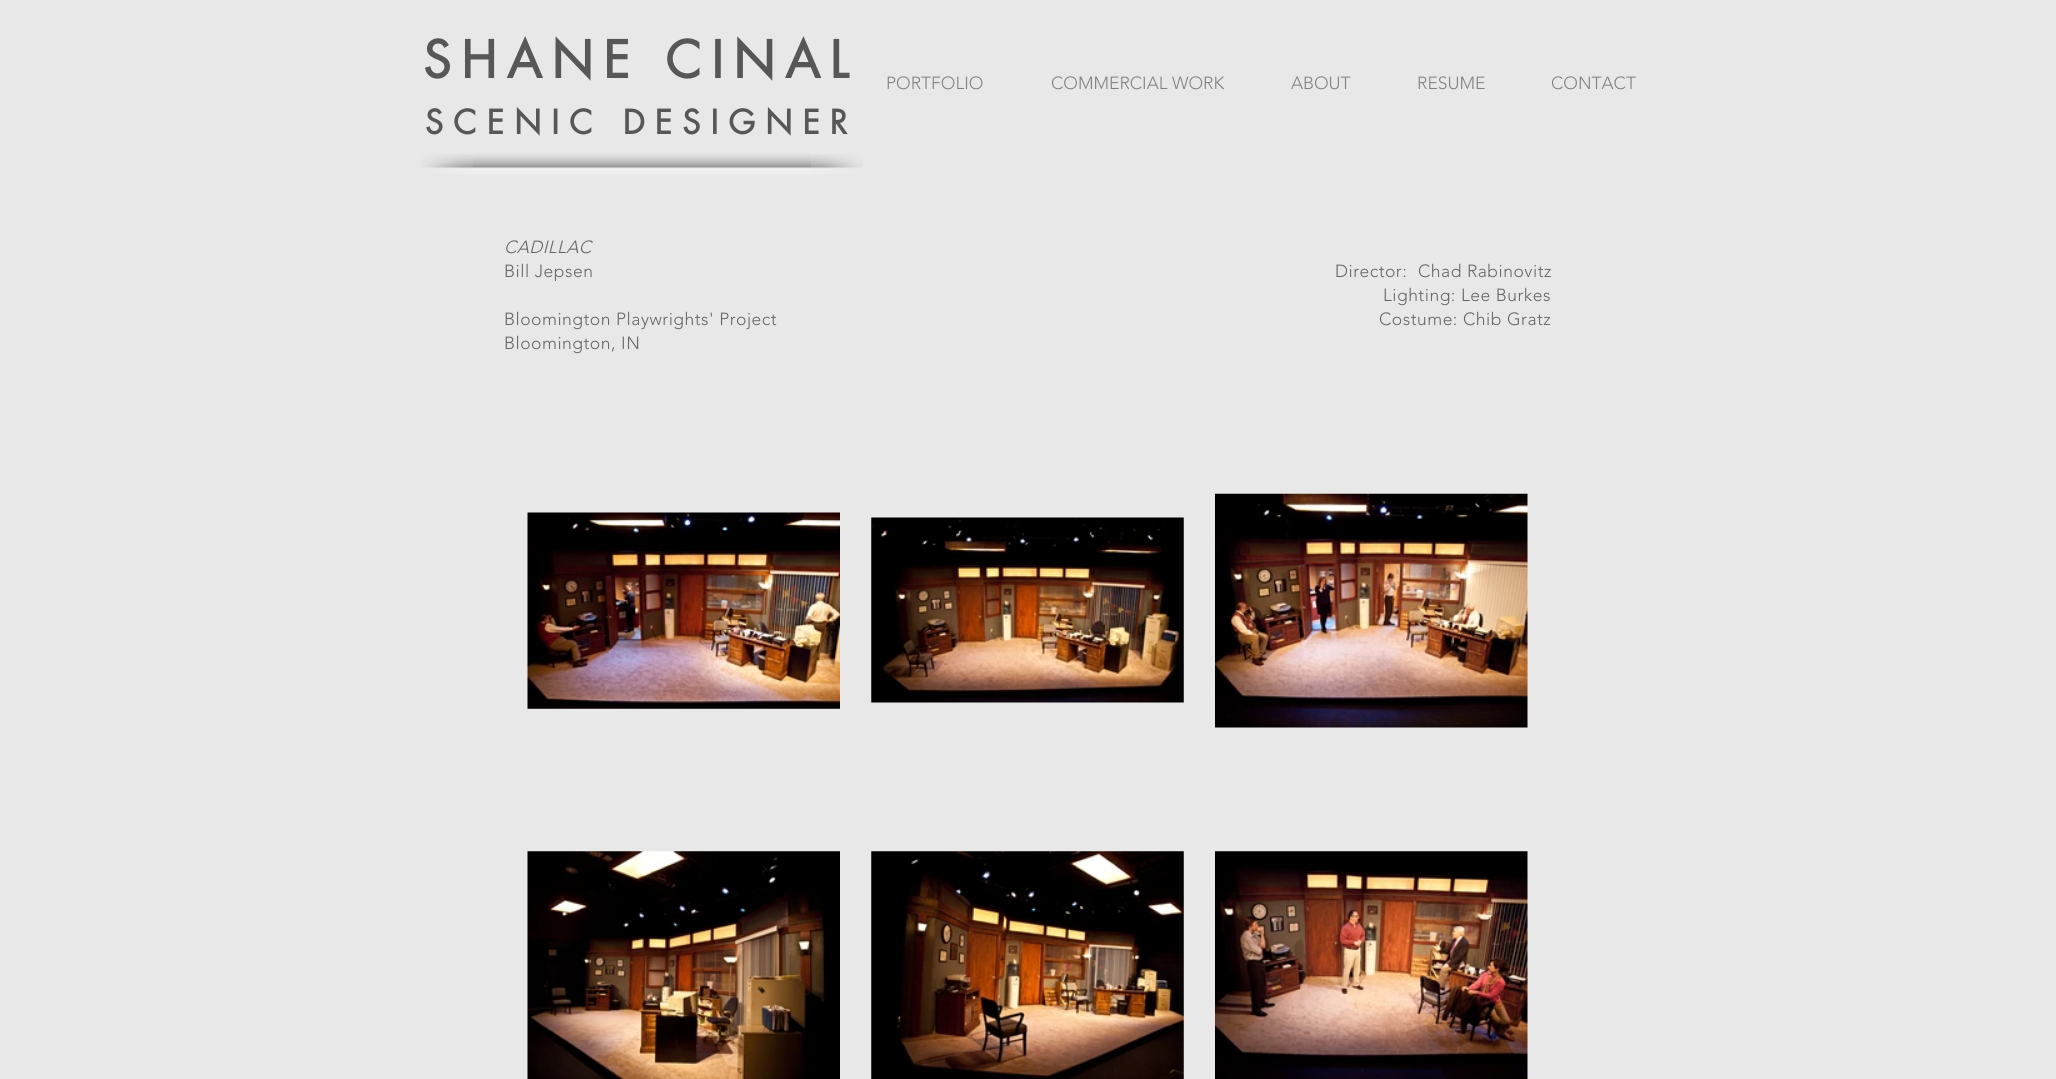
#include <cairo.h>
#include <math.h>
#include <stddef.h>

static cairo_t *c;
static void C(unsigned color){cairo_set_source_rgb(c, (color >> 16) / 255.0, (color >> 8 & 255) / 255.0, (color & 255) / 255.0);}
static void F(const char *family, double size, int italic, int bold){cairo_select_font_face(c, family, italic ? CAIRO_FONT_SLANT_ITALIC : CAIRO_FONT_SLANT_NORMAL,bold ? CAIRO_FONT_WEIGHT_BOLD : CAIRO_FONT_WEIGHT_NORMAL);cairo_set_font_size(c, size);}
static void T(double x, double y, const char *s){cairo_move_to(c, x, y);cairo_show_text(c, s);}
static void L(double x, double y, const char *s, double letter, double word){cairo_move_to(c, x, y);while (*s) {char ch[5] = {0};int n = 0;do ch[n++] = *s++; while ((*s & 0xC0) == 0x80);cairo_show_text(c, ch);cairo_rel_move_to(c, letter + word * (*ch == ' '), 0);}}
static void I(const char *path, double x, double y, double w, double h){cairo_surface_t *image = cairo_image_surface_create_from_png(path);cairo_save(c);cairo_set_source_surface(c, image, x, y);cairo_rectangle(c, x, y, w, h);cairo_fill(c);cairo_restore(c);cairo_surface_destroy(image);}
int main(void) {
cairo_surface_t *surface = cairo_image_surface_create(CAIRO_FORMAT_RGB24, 2056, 1079);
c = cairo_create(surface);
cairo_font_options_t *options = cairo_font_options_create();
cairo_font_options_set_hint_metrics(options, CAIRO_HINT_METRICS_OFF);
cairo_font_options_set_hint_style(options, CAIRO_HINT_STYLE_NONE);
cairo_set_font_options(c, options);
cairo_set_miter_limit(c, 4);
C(0xe8e8e8);
cairo_paint(c);
F("futura",50,0,1);
C(0x575757);
L(423,78,"SHANE CINAL",10,0);
F("futura",32.5,0,1);
L(425,134,"SCENIC DESIGNER",10.1,0);
F("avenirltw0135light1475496 Light",17.5,0,0);
C(0x818181);
T(886,89,"PORTFOLIO");
T(1051,89,"COMMERCIAL WORK");
T(1291,89,"ABOUT");
T(1417,89,"RESUME");
T(1551,89,"CONTACT");
I("1.png",472,153,340,22);
I("2.png",421,154,52,20);
I("3.png",811,154,52,20);
F("avenirltw0135light1475496 Light",17.5,1,0);
C(0x666666);
L(504,253,"CADILLAC",.5,0);
F("avenirltw0135light1475496 Light",17.5,0,0);
L(504,277,"Bill Jepsen",.5,0);
L(504,325,"Bloomington Playwrights' Project",.5,0);
L(504,349,"Bloomington, IN",.5,0);
L(1335,277,"Director:",.5,0);
L(1418,277,"Chad Rabinovitz",.5,0);
L(1383,301,"Lighting: Lee Burkes",.5,0);
L(1379,325,"Costume: Chib Gratz",.5,0);
I("4.png",527,512,313,197);
I("5.png",871,517,313,186);
I("6.png",1215,493,313,235);
I("7.png",527,851,313,228);
I("8.png",871,851,313,228);
I("9.png",1215,851,313,228);
cairo_surface_write_to_png(surface, "o.png");
cairo_font_options_destroy(options);
cairo_destroy(c);
cairo_surface_destroy(surface);
return 0;
}
